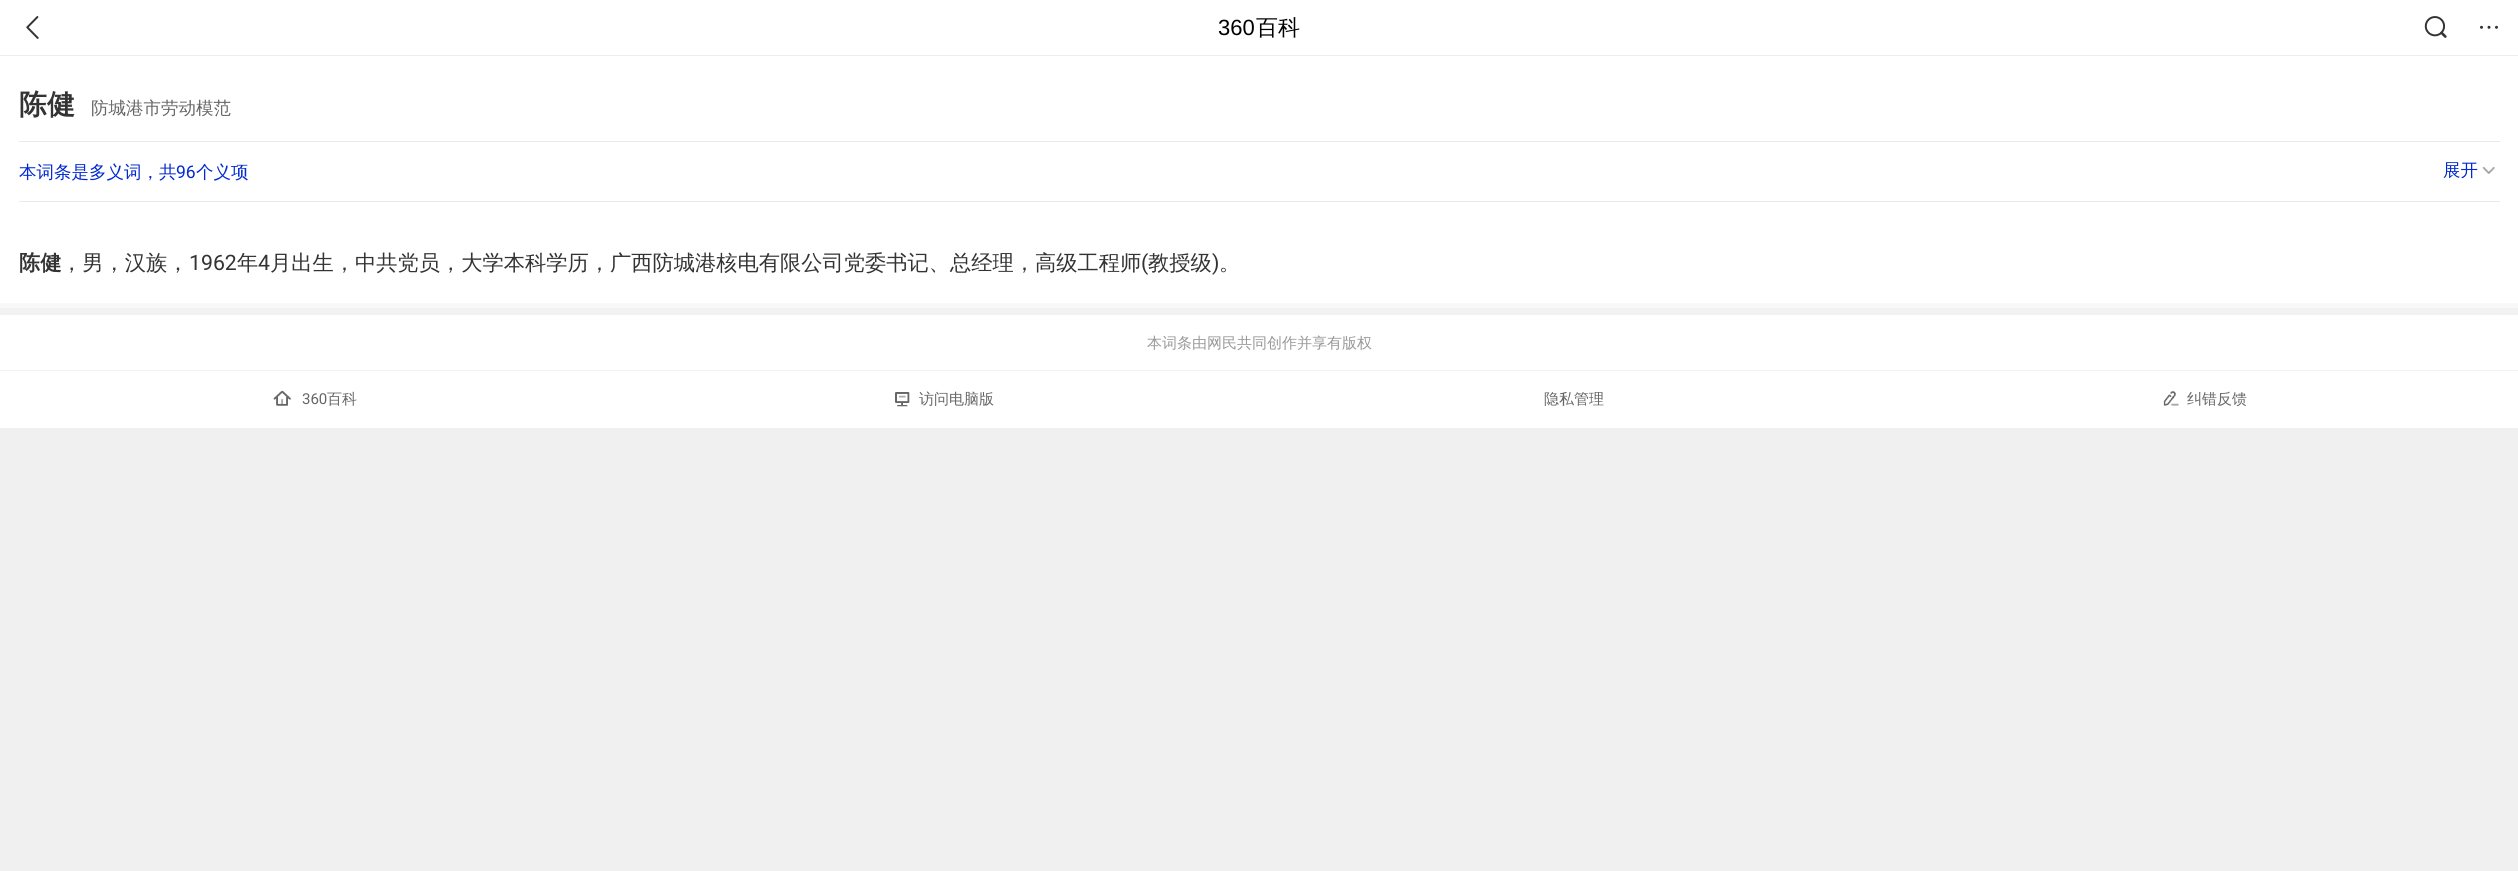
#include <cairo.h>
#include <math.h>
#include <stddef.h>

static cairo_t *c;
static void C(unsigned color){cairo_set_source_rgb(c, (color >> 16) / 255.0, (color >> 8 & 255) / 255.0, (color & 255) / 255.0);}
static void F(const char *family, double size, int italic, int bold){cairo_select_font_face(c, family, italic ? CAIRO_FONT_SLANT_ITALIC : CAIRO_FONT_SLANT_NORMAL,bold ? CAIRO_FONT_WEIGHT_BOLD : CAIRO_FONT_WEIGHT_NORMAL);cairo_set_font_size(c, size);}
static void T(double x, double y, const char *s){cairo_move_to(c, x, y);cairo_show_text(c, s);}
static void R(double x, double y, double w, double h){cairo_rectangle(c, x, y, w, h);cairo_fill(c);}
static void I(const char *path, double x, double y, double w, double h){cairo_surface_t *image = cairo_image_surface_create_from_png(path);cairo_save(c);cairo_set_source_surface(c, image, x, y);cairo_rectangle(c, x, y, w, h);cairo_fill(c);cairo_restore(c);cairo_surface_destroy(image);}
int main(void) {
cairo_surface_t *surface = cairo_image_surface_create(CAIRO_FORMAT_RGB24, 2518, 871);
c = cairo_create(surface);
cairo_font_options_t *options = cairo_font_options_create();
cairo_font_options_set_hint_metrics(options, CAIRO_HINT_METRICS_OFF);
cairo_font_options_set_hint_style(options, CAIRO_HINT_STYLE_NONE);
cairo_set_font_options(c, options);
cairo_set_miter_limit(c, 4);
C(0xf0f0f0);
cairo_paint(c);
C(0xffffff);
R(0,56,2518,372);
R(0,0,2518,55);
C(0xededed);
R(0,55,2518,1);
I("1.png",26,16,13,23);
F("Liberation Sans",22,0,0);
C(0x000000);
T(1218,35,"360");
F("WenQuanYi Zen Hei Medium",22,0,0);
T(1256,35,"百科");
I("2.png",2424,16,23,22);
C(0x333333);
cairo_arc(c,2481.5,27.3,1.5,0,2 * M_PI);
cairo_fill(c);
cairo_arc(c,2489,27.3,1.5,0,2 * M_PI);
cairo_fill(c);
cairo_arc(c,2496.5,27.3,1.5,0,2 * M_PI);
cairo_fill(c);
F("WenQuanYi Zen Hei",28,0,1);
T(19,114,"陈健");
F("WenQuanYi Zen Hei Medium",17.5,0,0);
C(0x666666);
T(91,114,"防城港市劳动模范");
C(0xeaeaea);
R(19,141,2481,1);
C(0x0029d0);
T(19,178,"本词条是多义词，共");
F("Roboto",17.5,0,0);
T(176,178,"96");
F("WenQuanYi Zen Hei Medium",17.5,0,0);
T(196,178,"个义项");
T(2443,176,"展开");
I("3.png",2482,166,13,8);
C(0xeaeaea);
R(19,201,2481,1);
F("WenQuanYi Zen Hei",21.25,0,1);
C(0x333333);
T(19,270,"陈健");
F("WenQuanYi Zen Hei Medium",21.25,0,0);
T(61,270,"，男，汉族，");
F("Roboto",21.25,0,0);
T(189,270,"1962");
F("WenQuanYi Zen Hei Medium",21.25,0,0);
T(237,270,"年");
F("Roboto",21.25,0,0);
T(258,270,"4");
F("WenQuanYi Zen Hei Medium",21.25,0,0);
T(270,270,"月出生，中共党员，大学本科学历，广西防城港核电有限公司党委书记、总经理，高级工程师");
F("Roboto",21.25,0,0);
T(1141,270,"(");
F("WenQuanYi Zen Hei Medium",21.25,0,0);
T(1148,270,"教授级");
F("Roboto",21.25,0,0);
T(1212,270,")");
F("WenQuanYi Zen Hei Medium",21.25,0,0);
T(1219,270,"。");
C(0xf8f8f8);
R(0,303,2518,5);
C(0xf2f2f2);
R(0,308,2518,7);
F("WenQuanYi Zen Hei Medium",15,0,0);
C(0x999999);
T(1147,348,"本词条由网民共同创作并享有版权");
C(0xf2f2f2);
R(0,370,2518,1);
I("4.png",273,390,19,16);
F("Roboto",15,0,0);
C(0x666666);
T(302,404,"360");
F("WenQuanYi Zen Hei Medium",15,0,0);
T(327,404,"百科");
I("5.png",895,392,15,15);
T(919,404,"访问电脑版");
T(1544,404,"隐私管理");
I("6.png",2163,391,16,15);
T(2187,404,"纠错反馈");
cairo_surface_write_to_png(surface, "o.png");
cairo_font_options_destroy(options);
cairo_destroy(c);
cairo_surface_destroy(surface);
return 0;
}
